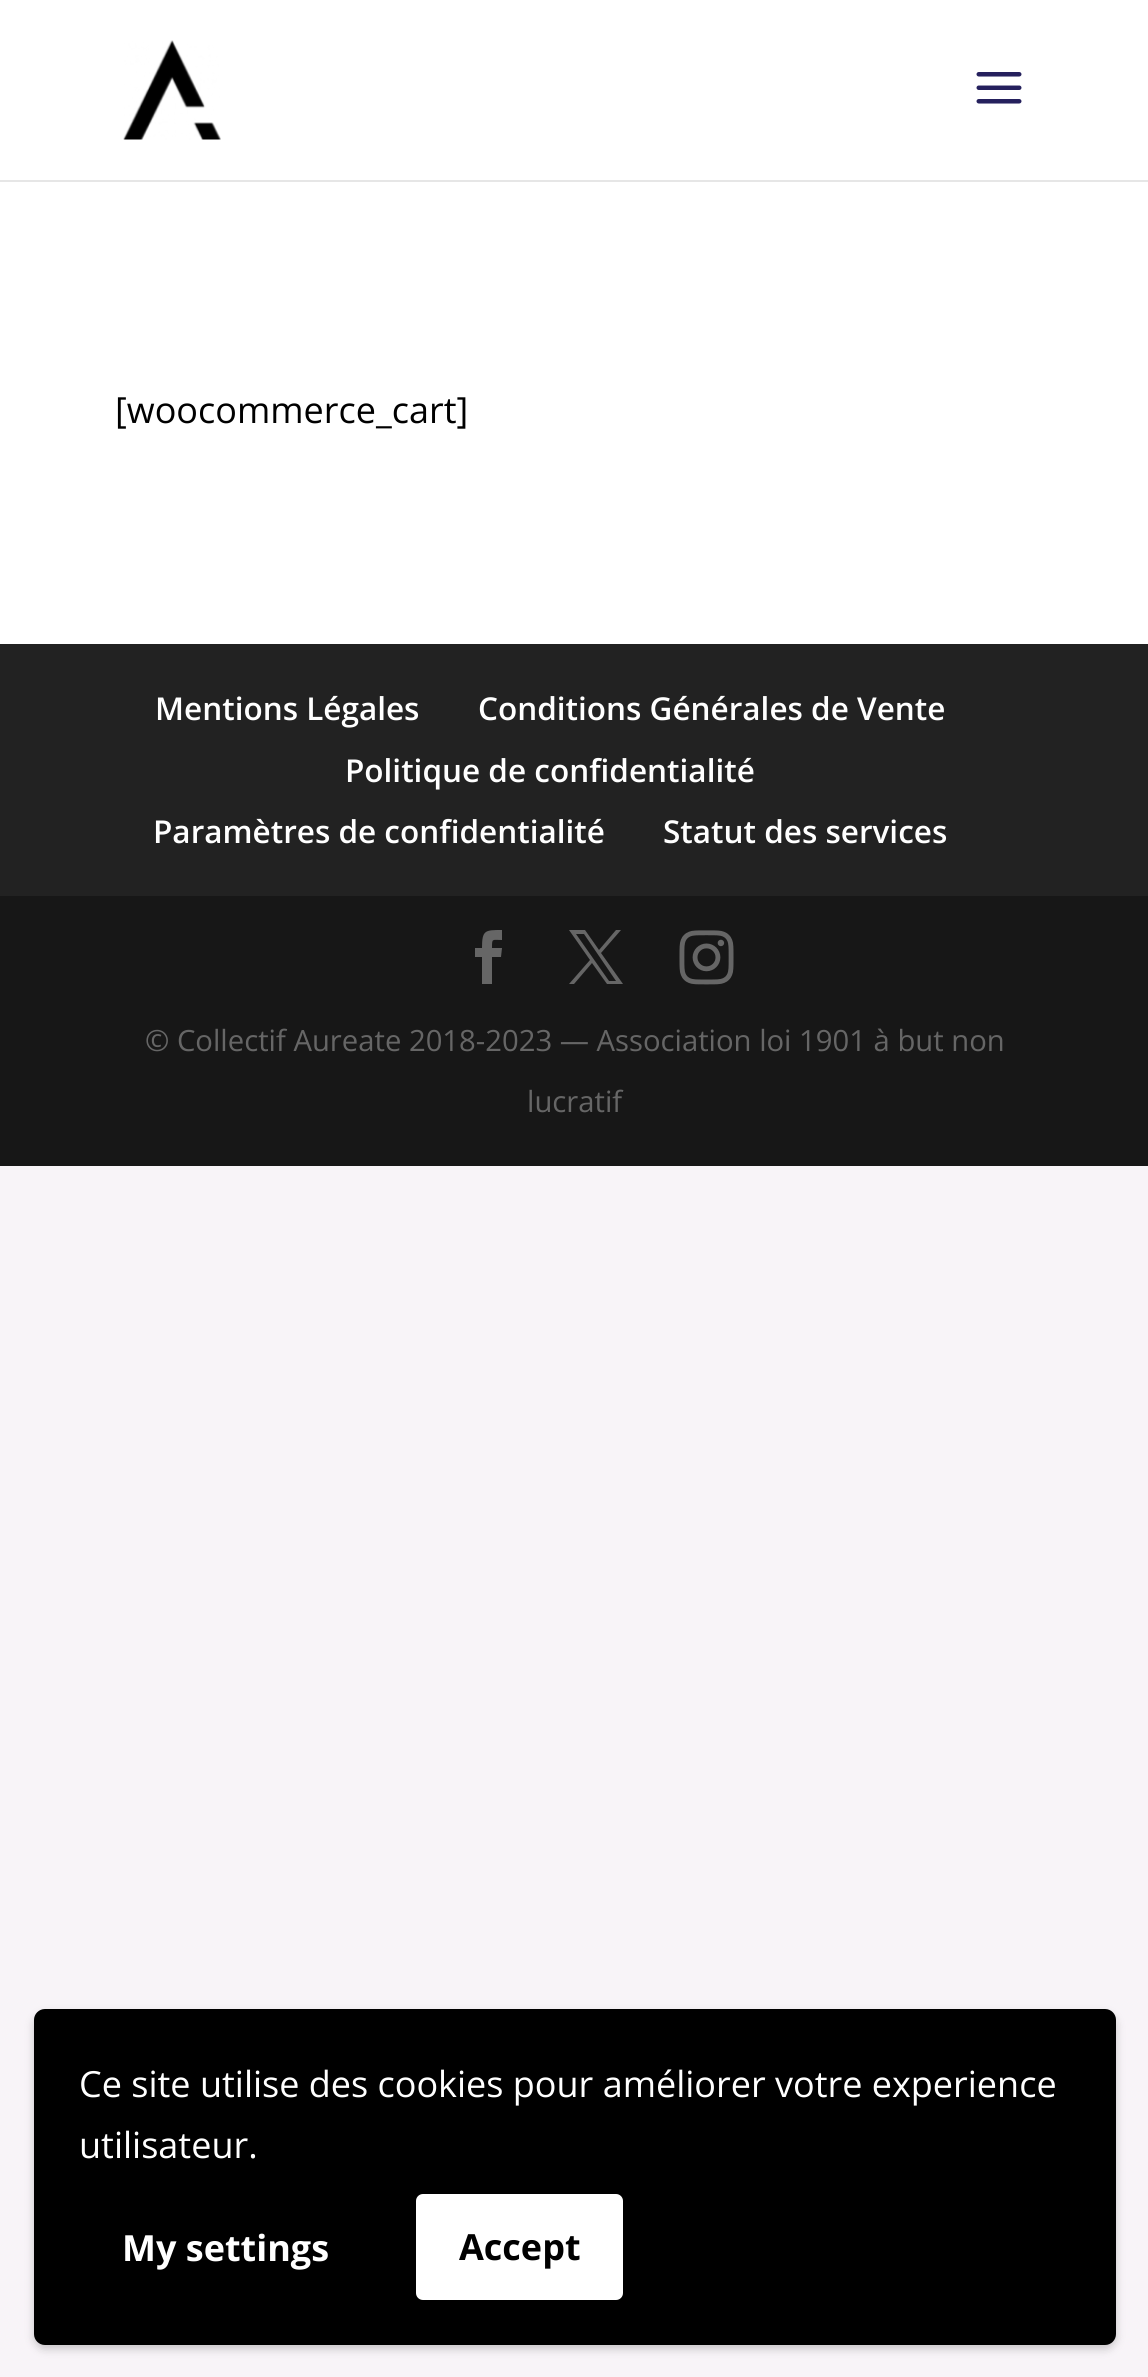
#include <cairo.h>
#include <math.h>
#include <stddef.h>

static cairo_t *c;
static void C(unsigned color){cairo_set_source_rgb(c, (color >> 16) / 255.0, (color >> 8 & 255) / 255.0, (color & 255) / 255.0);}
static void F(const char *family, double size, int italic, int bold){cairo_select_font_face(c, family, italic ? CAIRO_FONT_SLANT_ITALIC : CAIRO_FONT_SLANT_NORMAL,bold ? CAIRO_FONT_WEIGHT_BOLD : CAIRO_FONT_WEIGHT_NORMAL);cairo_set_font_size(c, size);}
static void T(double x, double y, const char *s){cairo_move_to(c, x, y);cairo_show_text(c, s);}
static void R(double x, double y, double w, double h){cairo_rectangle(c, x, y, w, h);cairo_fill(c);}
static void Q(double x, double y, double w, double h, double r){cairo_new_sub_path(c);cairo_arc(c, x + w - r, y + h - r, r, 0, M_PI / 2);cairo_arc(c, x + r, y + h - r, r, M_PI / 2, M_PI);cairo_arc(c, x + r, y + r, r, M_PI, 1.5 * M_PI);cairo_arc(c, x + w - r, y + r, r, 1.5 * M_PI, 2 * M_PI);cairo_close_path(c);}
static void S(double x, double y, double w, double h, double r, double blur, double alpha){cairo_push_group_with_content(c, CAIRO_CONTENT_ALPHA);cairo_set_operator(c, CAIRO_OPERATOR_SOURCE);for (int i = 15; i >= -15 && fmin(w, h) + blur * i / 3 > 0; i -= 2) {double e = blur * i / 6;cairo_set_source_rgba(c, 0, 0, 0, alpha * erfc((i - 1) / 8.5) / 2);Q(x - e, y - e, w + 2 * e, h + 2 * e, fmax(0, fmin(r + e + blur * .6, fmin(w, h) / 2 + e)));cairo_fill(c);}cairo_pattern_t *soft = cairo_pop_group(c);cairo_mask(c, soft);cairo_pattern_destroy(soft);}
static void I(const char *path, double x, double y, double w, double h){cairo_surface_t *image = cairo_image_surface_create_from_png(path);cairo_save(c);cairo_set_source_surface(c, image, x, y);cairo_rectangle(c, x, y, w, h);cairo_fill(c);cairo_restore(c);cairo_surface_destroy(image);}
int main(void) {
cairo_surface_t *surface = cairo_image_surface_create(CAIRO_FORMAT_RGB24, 1148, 2377);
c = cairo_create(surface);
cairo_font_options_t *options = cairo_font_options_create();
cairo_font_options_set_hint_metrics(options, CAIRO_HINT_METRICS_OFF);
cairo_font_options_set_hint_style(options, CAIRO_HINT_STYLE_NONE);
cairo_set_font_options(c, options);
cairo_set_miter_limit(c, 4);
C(0xf8f4f8);
cairo_paint(c);
C(0xe6e6e6);
cairo_new_path(c);
cairo_move_to(c,0,180);
cairo_line_to(c,0,182);
cairo_line_to(c,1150,182);
cairo_line_to(c,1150,2);
cairo_line_to(c,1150,180);
cairo_close_path(c);
cairo_fill(c);
C(0xffffff);
R(0,0,1148,180);
I("1.png",123,40,98,100);
I("2.png",976,72,46,32);
R(0,182,1148,462);
F("Open Sans",36,0,0);
C(0x000000);
T(115,423,"[woocommerce_cart]");
C(0x222222);
R(0,644,1148,252);
F("Open Sans SemiBold",31.5,0,0);
C(0xffffff);
T(155,720,"Mentions Légales");
T(478,720,"Conditions Générales de Vente");
T(345,782,"Politique de confidentialité");
T(153,843,"Paramètres de confidentialité");
T(663,843,"Statut des services");
C(0x171717);
R(0,896,1148,270);
C(0x666666);
cairo_new_path(c);
cairo_move_to(c,482,984);
cairo_line_to(c,492,984);
cairo_line_to(c,492,957);
cairo_line_to(c,501,957);
cairo_line_to(c,502,948);
cairo_line_to(c,492,948);
cairo_curve_to(c,492,938,492,940,502,940);
cairo_line_to(c,502,930);
cairo_curve_to(c,485,930,482,930,482,948);
cairo_line_to(c,475,948);
cairo_line_to(c,475,957);
cairo_line_to(c,482,957);
cairo_close_path(c);
cairo_fill(c);
cairo_new_path(c);
cairo_move_to(c,569,930);
cairo_line_to(c,590,960);
cairo_line_to(c,569,984);
cairo_line_to(c,574,984);
cairo_line_to(c,592,963);
cairo_line_to(c,607,984);
cairo_line_to(c,623,984);
cairo_line_to(c,601,953);
cairo_line_to(c,621,930);
cairo_line_to(c,616,930);
cairo_line_to(c,599,950);
cairo_line_to(c,585,930);
cairo_close_path(c);
cairo_move_to(c,576,934);
cairo_line_to(c,584,934);
cairo_line_to(c,616,981);
cairo_line_to(c,609,981);
cairo_close_path(c);
cairo_fill(c);
I("3.png",679,930,55,55);
F("Open Sans",29.25,0,0);
T(145,1051,"© Collectif Aureate 2018-2023 — Association loi 1901 à but non");
T(527,1112,"lucratif");
C(0x000000);
S(34,2014,1082,335,11,4.5,.2);
C(0x000000);
Q(34,2009,1082,336,11);
cairo_fill(c);
F("Open Sans",36,0,0);
C(0xffffff);
T(79,2097,"Ce site utilise des cookies pour améliorer votre experience");
T(79,2158,"utilisateur.");
F("Open Sans",36,0,1);
T(122,2261,"My settings");
Q(417,2195,205,104,6);
cairo_fill_preserve(c);
cairo_stroke(c);
C(0x000000);
T(459,2260,"Accept");
cairo_surface_write_to_png(surface, "o.png");
cairo_font_options_destroy(options);
cairo_destroy(c);
cairo_surface_destroy(surface);
return 0;
}
